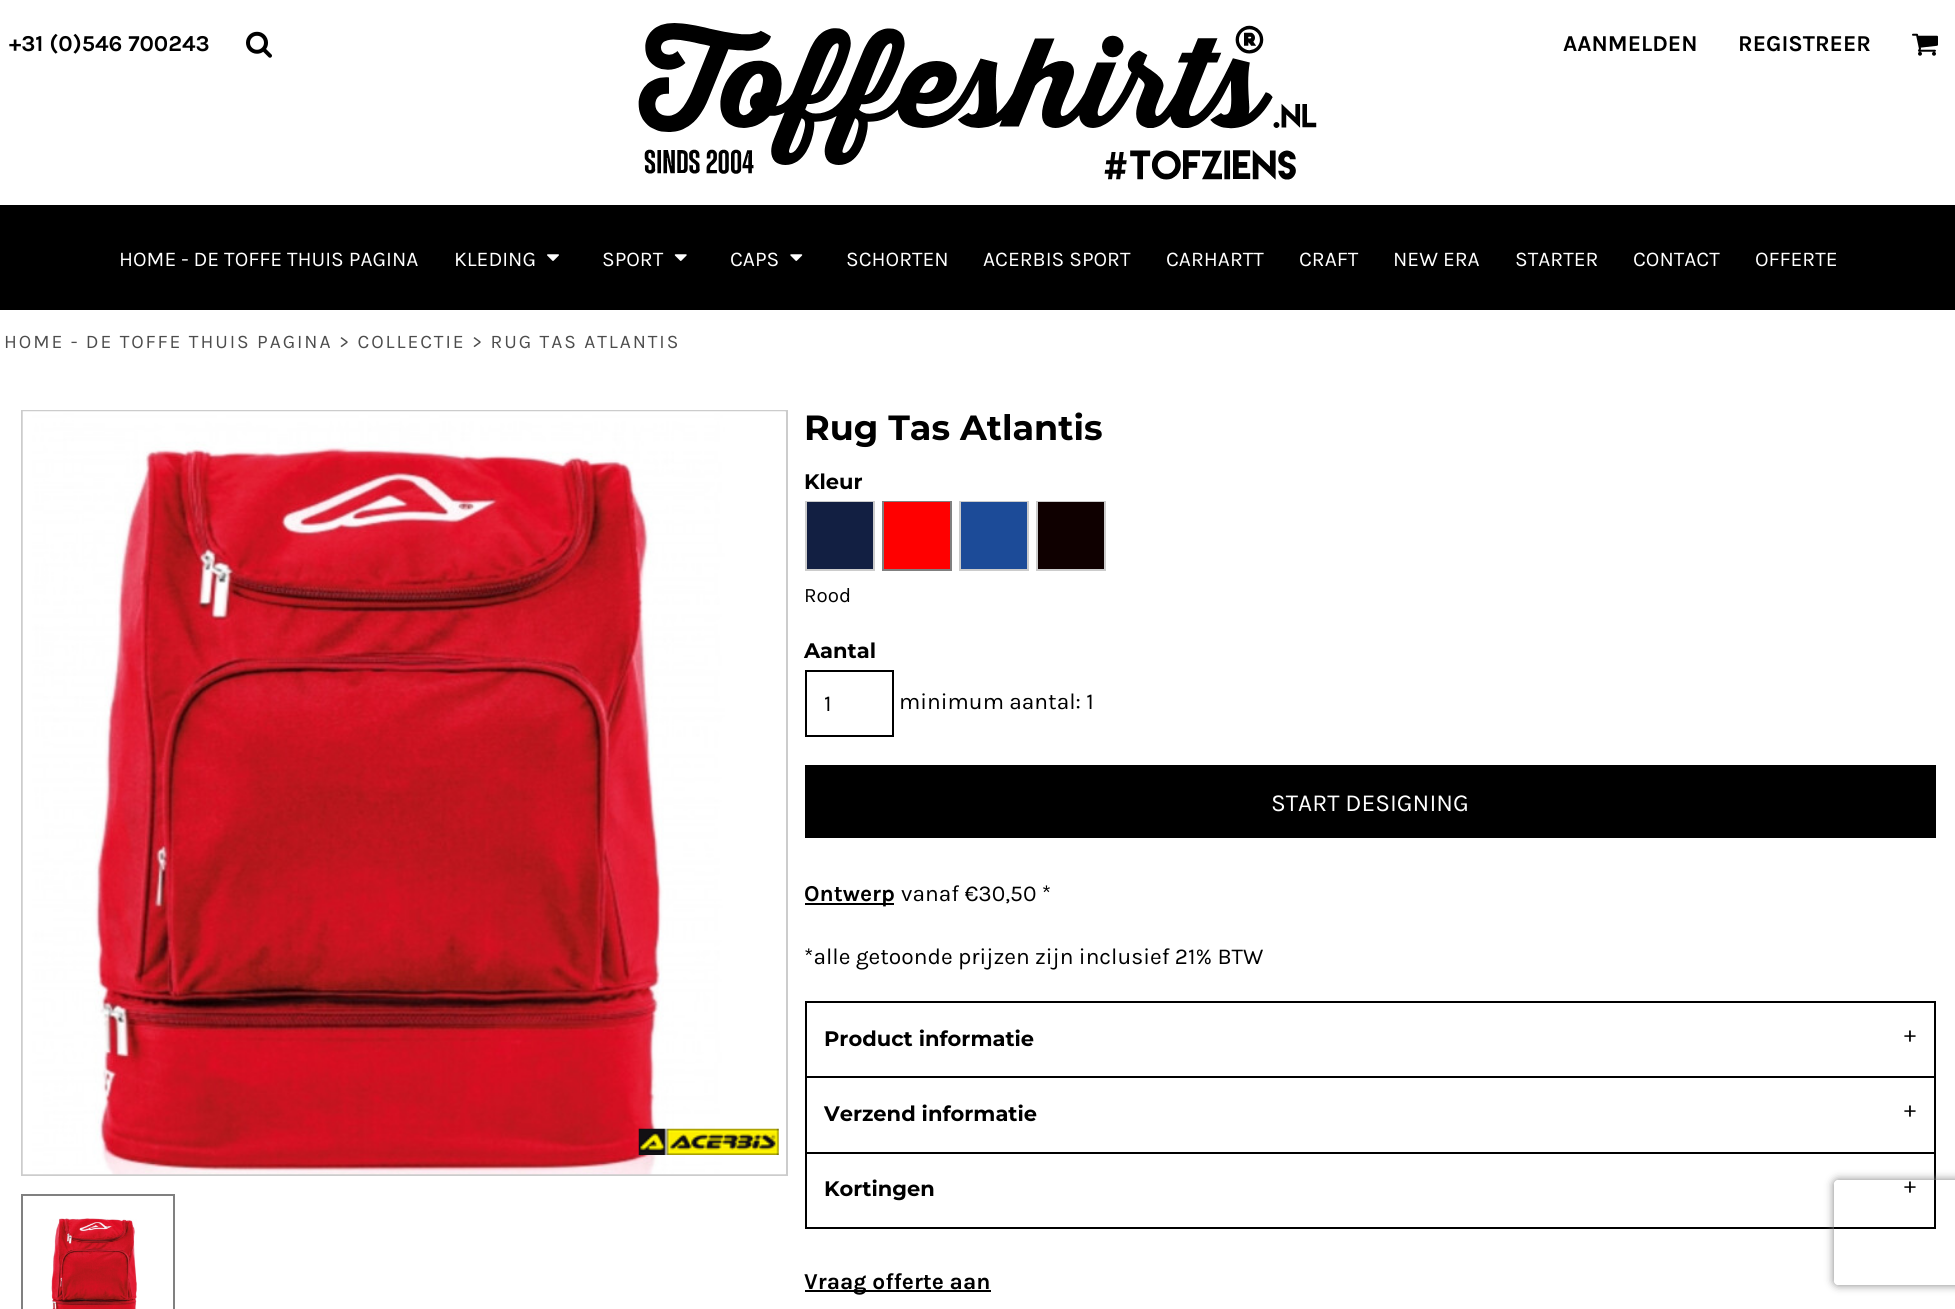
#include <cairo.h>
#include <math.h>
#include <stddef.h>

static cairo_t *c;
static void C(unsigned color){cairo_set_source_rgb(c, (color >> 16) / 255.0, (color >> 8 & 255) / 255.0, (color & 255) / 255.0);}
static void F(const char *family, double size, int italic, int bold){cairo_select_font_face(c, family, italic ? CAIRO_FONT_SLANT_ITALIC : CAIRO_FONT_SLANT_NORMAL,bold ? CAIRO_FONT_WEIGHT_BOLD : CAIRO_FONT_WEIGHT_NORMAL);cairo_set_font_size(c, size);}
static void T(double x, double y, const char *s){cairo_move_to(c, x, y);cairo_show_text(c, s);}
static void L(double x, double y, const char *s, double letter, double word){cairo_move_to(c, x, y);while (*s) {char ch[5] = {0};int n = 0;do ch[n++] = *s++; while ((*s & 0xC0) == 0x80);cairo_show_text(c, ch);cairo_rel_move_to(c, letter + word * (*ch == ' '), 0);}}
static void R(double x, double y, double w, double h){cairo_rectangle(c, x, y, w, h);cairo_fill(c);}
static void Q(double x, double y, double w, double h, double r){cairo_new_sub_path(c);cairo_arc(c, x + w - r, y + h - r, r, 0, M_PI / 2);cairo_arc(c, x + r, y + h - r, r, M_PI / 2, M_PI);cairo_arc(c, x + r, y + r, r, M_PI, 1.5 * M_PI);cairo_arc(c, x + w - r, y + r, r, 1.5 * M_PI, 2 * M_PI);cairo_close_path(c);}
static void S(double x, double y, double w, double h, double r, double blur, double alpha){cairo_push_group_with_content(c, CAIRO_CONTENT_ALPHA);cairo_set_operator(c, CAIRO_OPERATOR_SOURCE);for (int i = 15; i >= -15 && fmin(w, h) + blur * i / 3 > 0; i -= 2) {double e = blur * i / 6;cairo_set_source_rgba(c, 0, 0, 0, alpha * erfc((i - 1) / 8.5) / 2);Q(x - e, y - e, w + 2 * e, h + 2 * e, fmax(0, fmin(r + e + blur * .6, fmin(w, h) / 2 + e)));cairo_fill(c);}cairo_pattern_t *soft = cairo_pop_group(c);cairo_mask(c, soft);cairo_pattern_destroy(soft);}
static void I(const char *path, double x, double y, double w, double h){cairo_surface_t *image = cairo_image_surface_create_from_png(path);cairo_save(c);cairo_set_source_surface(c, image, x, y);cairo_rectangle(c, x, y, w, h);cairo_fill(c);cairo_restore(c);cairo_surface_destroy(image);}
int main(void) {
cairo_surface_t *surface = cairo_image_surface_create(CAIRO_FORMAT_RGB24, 1955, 1309);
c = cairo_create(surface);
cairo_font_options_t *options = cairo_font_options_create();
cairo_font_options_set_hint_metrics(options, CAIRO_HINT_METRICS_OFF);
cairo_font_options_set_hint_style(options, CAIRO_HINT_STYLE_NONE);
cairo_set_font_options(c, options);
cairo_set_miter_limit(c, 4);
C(0xffffff);
cairo_paint(c);
F("Karla",22.75,0,1);
C(0x000000);
T(9,51,"+31 (0)546 700243");
I("1.png",246,31,26,27);
I("2.png",638,23,679,157);
T(1563,51,"AANMELDEN");
T(1738,51,"REGISTREER");
I("3.png",1912,33,26,23);
R(0,205,1955,105);
F("Karla",21,0,0);
C(0xffffff);
T(119,266,"HOME - DE TOFFE THUIS PAGINA");
T(454,266,"KLEDING");
I("4.png",547,254,12,7);
T(602,266,"SPORT");
I("5.png",674,254,13,7);
T(730,266,"CAPS");
I("6.png",790,254,13,7);
T(846,266,"SCHORTEN");
T(983,266,"ACERBIS SPORT");
T(1166,266,"CARHARTT");
T(1299,266,"CRAFT");
T(1393,266,"NEW ERA");
T(1515,266,"STARTER");
T(1633,266,"CONTACT");
T(1755,266,"OFFERTE");
F("Karla",19.25,0,0);
C(0x4d4d4d);
L(4,348,"HOME - DE TOFFE THUIS PAGINA > COLLECTIE > RUG TAS ATLANTIS",1.93,0);
cairo_rectangle(c,22,411,765,764);
C(0xcccccc);
cairo_stroke(c);
I("7.png",22,411,764,764);
I("8.png",638,1128,141,27);
cairo_rectangle(c,22,1195,152,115);
C(0x808080);
cairo_stroke(c);
I("9.png",50,1218,87,91);
F("Montserrat Thin",35,0,0);
C(0x000000);
T(804,440,"Rug Tas Atlantis");
F("Montserrat Thin",21,0,0);
T(804,489,"Kleur");
cairo_rectangle(c,806,502,68,68);
C(0xcccccc);
cairo_stroke(c);
C(0x121f42);
R(807,502,66,67);
cairo_rectangle(c,883,502,68,68);
C(0x808080);
cairo_stroke(c);
C(0xff0000);
R(884,502,66,67);
cairo_rectangle(c,960,502,68,68);
C(0xcccccc);
cairo_stroke(c);
C(0x1c4b98);
R(961,502,66,67);
cairo_rectangle(c,1037,502,68,68);
C(0xcccccc);
cairo_stroke(c);
C(0x0f0000);
R(1038,502,66,67);
F("Karla",20.5,0,0);
C(0x000000);
T(804,602,"Rood");
F("Montserrat Thin",21,0,0);
T(804,658,"Aantal");
cairo_rectangle(c,806,671,87,65);
cairo_stroke(c);
F("Karla",22.75,0,0);
T(824,711,"1");
T(899,709,"minimum aantal: 1");
R(805,765,1131,73);
F("Karla",24.5,0,0);
C(0xffffff);
T(1271,811,"START DESIGNING");
C(0x000000);
R(805,903,89,2);
F("Karla",22.75,0,1);
T(804,901,"Ontwerp");
F("Karla",22.75,0,0);
T(901,901,"vanaf €30,50 *");
T(804,964,"*alle getoonde prijzen zijn inclusief 21% BTW");
cairo_rectangle(c,806,1002,1129,226);
cairo_stroke(c);
F("Montserrat Thin",21,0,0);
T(824,1046,"Product informatie");
F("Karla",22.75,0,0);
T(1904,1042,"+");
R(807,1076,1127,2);
F("Montserrat Thin",21,0,0);
T(824,1121,"Verzend informatie");
F("Karla",22.75,0,0);
T(1904,1117,"+");
R(807,1152,1127,2);
F("Montserrat Thin",21,0,0);
T(824,1196,"Kortingen");
F("Karla",22.75,0,0);
T(1904,1193,"+");
R(805,1290,186,2);
F("Karla",22.75,0,1);
T(804,1289,"Vraag offerte aan");
cairo_save(c);
cairo_set_fill_rule(c,CAIRO_FILL_RULE_EVEN_ODD);
cairo_new_path(c);
cairo_move_to(c,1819,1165);
cairo_line_to(c,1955,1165);
cairo_line_to(c,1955,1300);
cairo_line_to(c,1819,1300);
cairo_close_path(c);
cairo_move_to(c,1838,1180);
cairo_line_to(c,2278,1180);
cairo_curve_to(c,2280,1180,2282,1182,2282,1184);
cairo_line_to(c,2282,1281);
cairo_curve_to(c,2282,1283,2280,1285,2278,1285);
cairo_line_to(c,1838,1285);
cairo_curve_to(c,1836,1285,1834,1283,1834,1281);
cairo_line_to(c,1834,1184);
cairo_curve_to(c,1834,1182,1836,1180,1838,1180);
cairo_close_path(c);
cairo_clip(c);
C(0x808080);
S(1834,1180,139,105,4,4.5,1);
cairo_restore(c);
cairo_surface_write_to_png(surface, "o.png");
cairo_font_options_destroy(options);
cairo_destroy(c);
cairo_surface_destroy(surface);
return 0;
}
